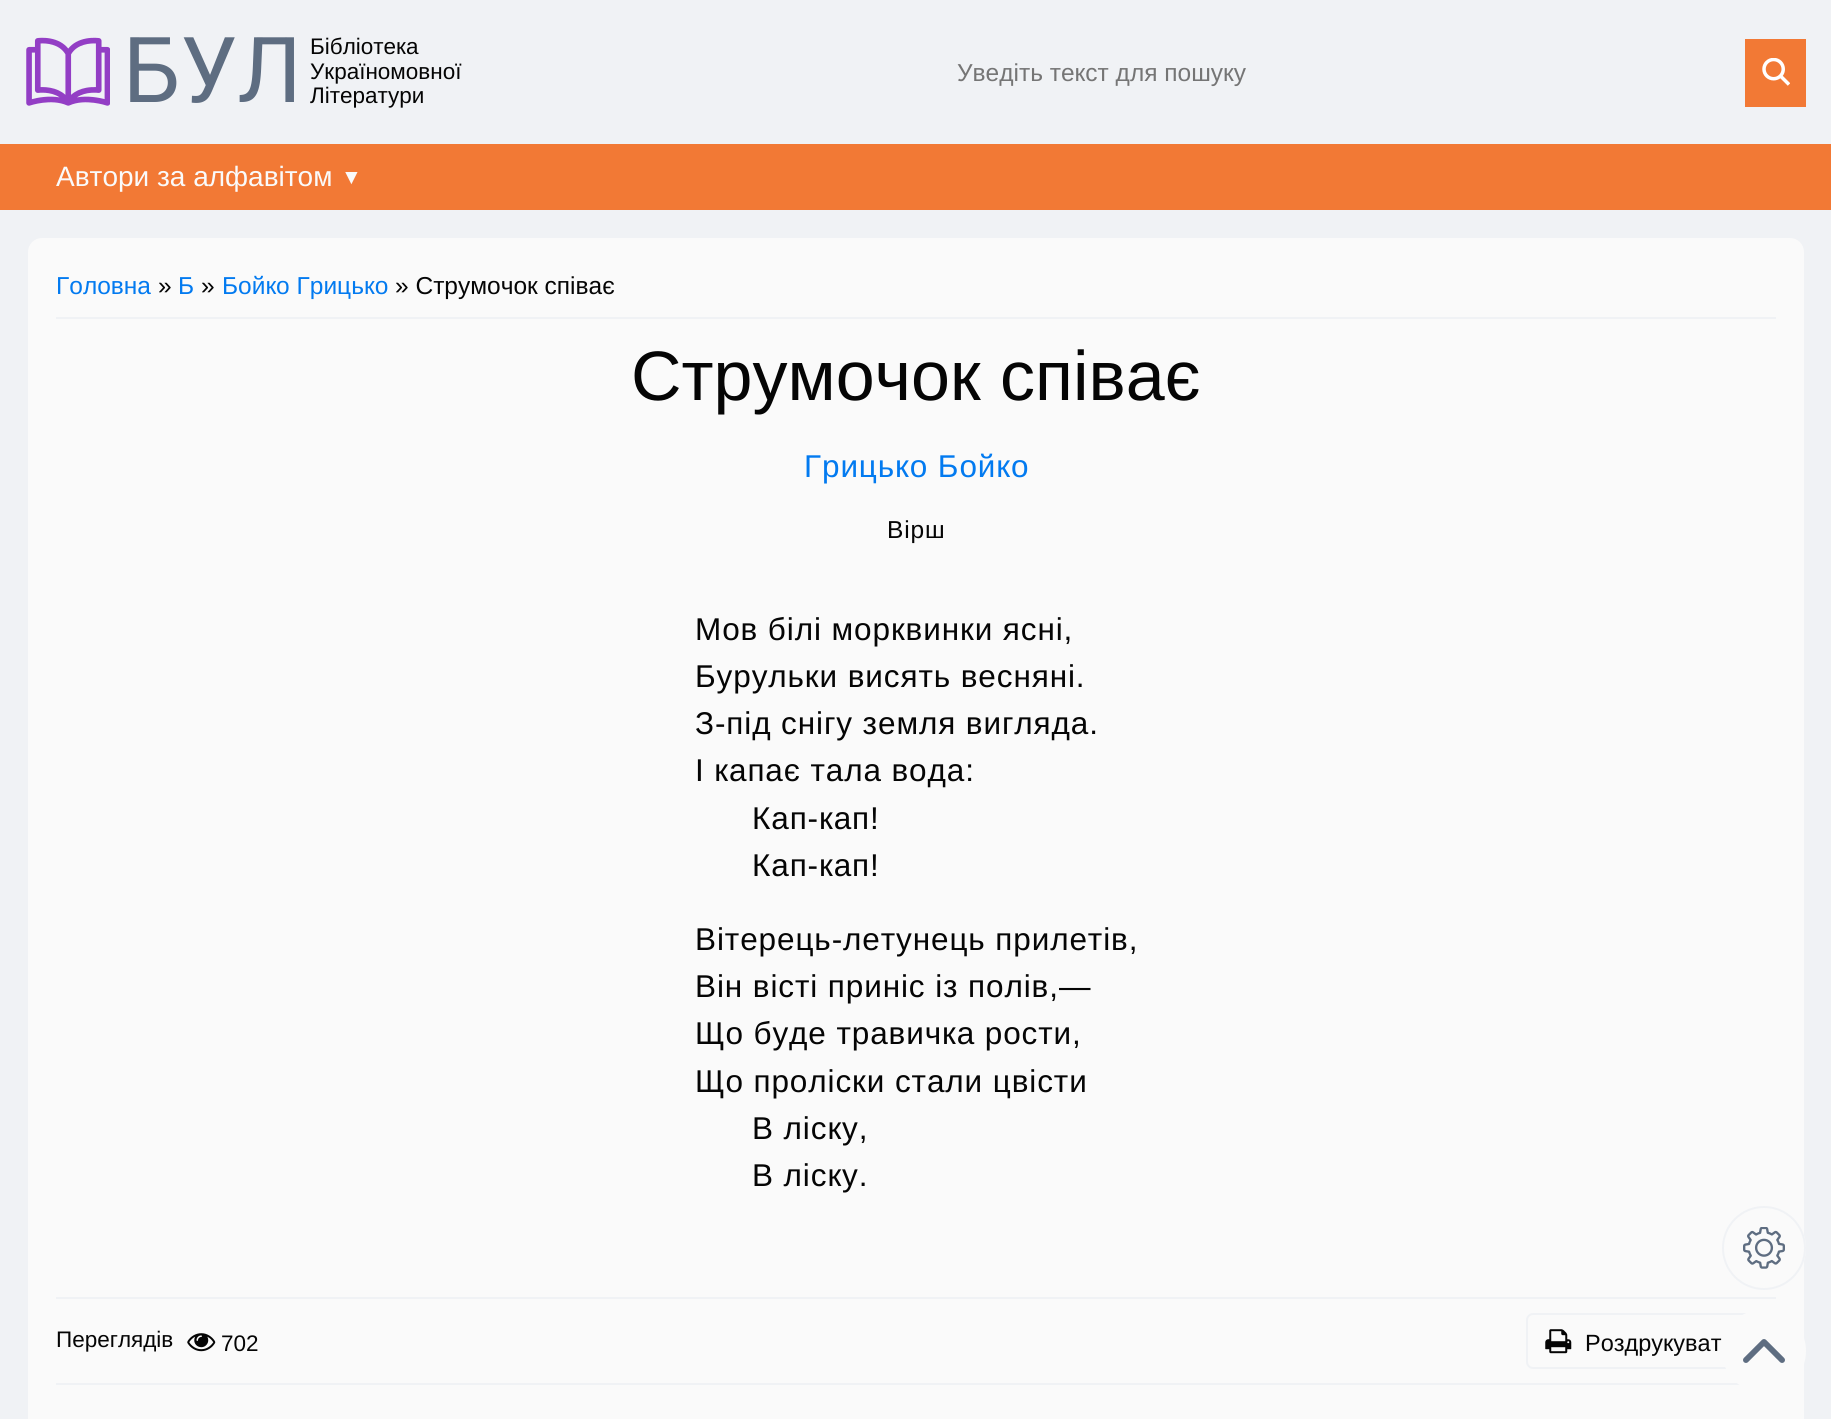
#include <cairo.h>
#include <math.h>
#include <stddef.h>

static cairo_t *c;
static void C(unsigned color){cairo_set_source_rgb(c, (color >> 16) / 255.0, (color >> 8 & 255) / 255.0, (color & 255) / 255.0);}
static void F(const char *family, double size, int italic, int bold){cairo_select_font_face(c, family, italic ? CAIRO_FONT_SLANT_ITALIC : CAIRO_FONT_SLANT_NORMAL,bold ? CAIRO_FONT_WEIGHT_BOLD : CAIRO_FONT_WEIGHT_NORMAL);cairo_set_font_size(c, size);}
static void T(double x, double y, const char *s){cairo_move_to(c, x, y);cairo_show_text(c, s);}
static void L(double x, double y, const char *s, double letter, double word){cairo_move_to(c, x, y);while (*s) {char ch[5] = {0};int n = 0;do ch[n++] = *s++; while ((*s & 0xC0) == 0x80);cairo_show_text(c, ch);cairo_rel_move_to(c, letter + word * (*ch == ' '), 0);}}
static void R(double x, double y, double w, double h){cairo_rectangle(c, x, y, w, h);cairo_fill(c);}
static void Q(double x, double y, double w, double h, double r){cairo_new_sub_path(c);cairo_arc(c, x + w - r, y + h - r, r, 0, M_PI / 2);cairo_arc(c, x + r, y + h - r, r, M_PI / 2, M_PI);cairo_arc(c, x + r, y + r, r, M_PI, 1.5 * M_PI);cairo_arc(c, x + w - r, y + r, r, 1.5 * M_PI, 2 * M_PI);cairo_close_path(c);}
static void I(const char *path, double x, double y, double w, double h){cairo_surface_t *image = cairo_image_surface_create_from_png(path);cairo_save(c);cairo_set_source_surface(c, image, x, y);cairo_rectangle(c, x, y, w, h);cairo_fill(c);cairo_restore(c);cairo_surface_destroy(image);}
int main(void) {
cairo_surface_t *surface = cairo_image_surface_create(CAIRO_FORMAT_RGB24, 1831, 1419);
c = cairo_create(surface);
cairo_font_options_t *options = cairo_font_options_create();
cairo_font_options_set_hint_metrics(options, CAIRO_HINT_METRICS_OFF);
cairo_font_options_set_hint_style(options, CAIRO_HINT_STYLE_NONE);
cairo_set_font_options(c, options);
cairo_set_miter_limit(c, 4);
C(0xf0f2f5);
cairo_paint(c);
I("1.png",26,37,84,69);
F("Roboto",91,0,0);
C(0x5e6d81);
T(123,102,"БУЛ");
F("Liberation Sans",22.5,0,0);
C(0x050505);
T(310,54,"Бібліотека");
T(310,79,"Україномовної");
T(310,103,"Літератури");
F("Liberation Sans",24.5,0,0);
C(0x757575);
T(957,81,"Уведіть текст для пошуку");
C(0xf27935);
R(1745,39,61,68);
I("2.png",1762,58,28,28);
R(0,144,1831,66);
F("Liberation Sans",28,0,0);
C(0xfafafa);
T(56,186,"Автори за алфавітом");
F("Liberation Sans",21,0,0);
T(341,184,"▼");
Q(28,238,1776,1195,14);
cairo_fill(c);
C(0xf0f2f5);
R(56,317,1720,2);
F("Liberation Sans",24.5,0,0);
C(0x027af0);
T(56,294,"Головна");
C(0x050505);
T(158,294,"»");
C(0x027af0);
T(178,294,"Б");
C(0x050505);
T(201,294,"»");
C(0x027af0);
T(222,294,"Бойко Грицько");
C(0x050505);
T(395,294,"» Струмочок співає");
F("Liberation Sans",70,0,0);
T(631,400,"Струмочок співає");
F("Liberation Sans",31.5,0,0);
C(0x027af0);
L(804,477,"Грицько Бойко",.9,0);
F("Liberation Sans",24.5,0,0);
C(0x050505);
L(887,538,"Вірш",.9,0);
F("Liberation Sans",31.5,0,0);
L(695,640,"Мов білі морквинки ясні,",.9,0);
L(695,687,"Бурульки висять весняні.",.9,0);
L(695,734,"З-під снігу земля вигляда.",.9,0);
L(695,781,"І капає тала вода:",.9,0);
L(752,829,"Кап-кап!",.9,0);
L(752,876,"Кап-кап!",.9,0);
L(695,950,"Вітерець-летунець прилетів,",.9,0);
L(695,997,"Він вісті приніс із полів,—",.9,0);
L(695,1044,"Що буде травичка рости,",.9,0);
L(695,1092,"Що проліски стали цвісти",.9,0);
L(752,1139,"В ліску,",.9,0);
L(752,1186,"В ліску.",.9,0);
C(0xf0f2f5);
R(56,1297,1720,2);
R(56,1383,1684,2);
F("Liberation Sans",22.5,0,0);
C(0x050505);
T(56,1347,"Переглядів");
I("3.png",187,1333,29,19);
T(221,1351,"702");
Q(1527,1314,227,54,6);
C(0xf0f2f5);
cairo_stroke(c);
I("4.png",1545,1329,27,25);
F("Liberation Sans",23.5,0,0);
C(0x050505);
T(1585,1351,"Роздрукуват");
C(0xfafafa);
cairo_new_path(c);
cairo_arc(c,1764,1248,42,0,2 * M_PI);
cairo_fill(c);
I("5.png",1743,1227,42,42);
cairo_arc(c,1764,1248,41,0,2 * M_PI);
C(0xf0f2f5);
cairo_stroke(c);
C(0xfafafa);
cairo_arc(c,1764,1351,42,0,2 * M_PI);
cairo_fill(c);
I("6.png",1743,1339,42,24);
cairo_surface_write_to_png(surface, "o.png");
cairo_font_options_destroy(options);
cairo_destroy(c);
cairo_surface_destroy(surface);
return 0;
}
